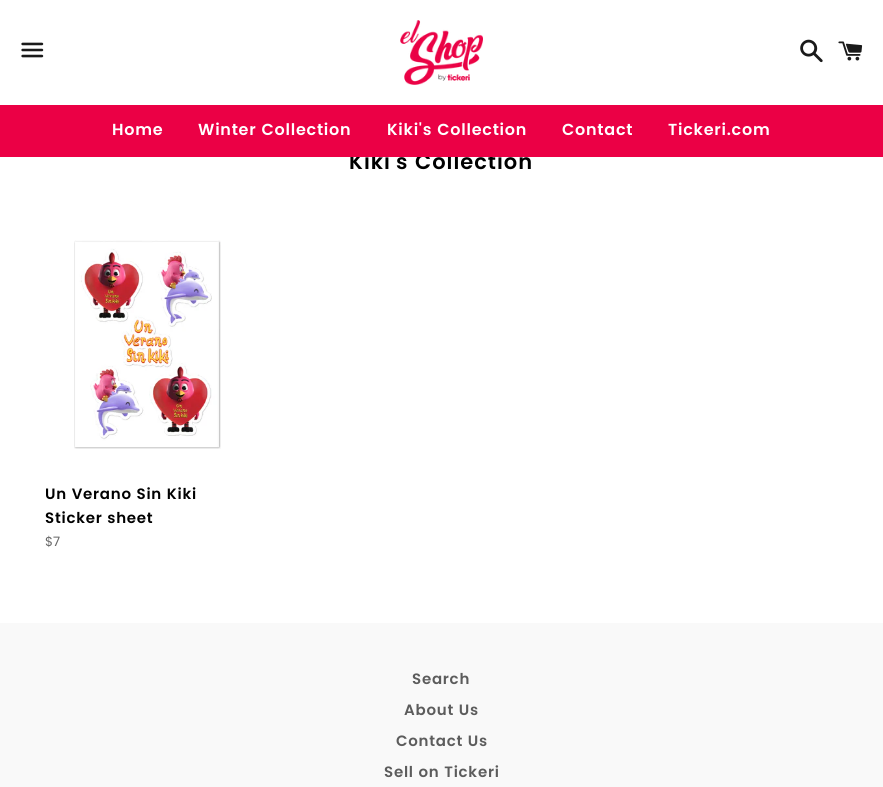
#include <cairo.h>
#include <math.h>
#include <stddef.h>

static cairo_t *c;
static void C(unsigned color){cairo_set_source_rgb(c, (color >> 16) / 255.0, (color >> 8 & 255) / 255.0, (color & 255) / 255.0);}
static void F(const char *family, double size, int italic, int bold){cairo_select_font_face(c, family, italic ? CAIRO_FONT_SLANT_ITALIC : CAIRO_FONT_SLANT_NORMAL,bold ? CAIRO_FONT_WEIGHT_BOLD : CAIRO_FONT_WEIGHT_NORMAL);cairo_set_font_size(c, size);}
static void T(double x, double y, const char *s){cairo_move_to(c, x, y);cairo_show_text(c, s);}
static void L(double x, double y, const char *s, double letter, double word){cairo_move_to(c, x, y);while (*s) {char ch[5] = {0};int n = 0;do ch[n++] = *s++; while ((*s & 0xC0) == 0x80);cairo_show_text(c, ch);cairo_rel_move_to(c, letter + word * (*ch == ' '), 0);}}
static void R(double x, double y, double w, double h){cairo_rectangle(c, x, y, w, h);cairo_fill(c);}
static void I(const char *path, double x, double y, double w, double h){cairo_surface_t *image = cairo_image_surface_create_from_png(path);cairo_save(c);cairo_set_source_surface(c, image, x, y);cairo_rectangle(c, x, y, w, h);cairo_fill(c);cairo_restore(c);cairo_surface_destroy(image);}
int main(void) {
cairo_surface_t *surface = cairo_image_surface_create(CAIRO_FORMAT_RGB24, 883, 787);
c = cairo_create(surface);
cairo_font_options_t *options = cairo_font_options_create();
cairo_font_options_set_hint_metrics(options, CAIRO_HINT_METRICS_OFF);
cairo_font_options_set_hint_style(options, CAIRO_HINT_STYLE_NONE);
cairo_set_font_options(c, options);
cairo_set_miter_limit(c, 4);
C(0xffffff);
cairo_paint(c);
I("1.png",21,42,23,16);
I("2.png",400,20,83,65);
I("3.png",800,39,23,24);
I("4.png",838,41,25,20);
F("Poppins SemiBold",21,0,0);
C(0x000000);
L(349,169,"Kiki's Collection",1,0);
C(0xeb0045);
R(0,105,883,52);
F("Poppins SemiBold",16,0,0);
C(0xffffff);
L(112,135,"Home",.75,0);
L(198,135,"Winter Collection",.75,0);
L(387,135,"Kiki's Collection",.75,0);
L(562,135,"Contact",.75,0);
L(668,135,"Tickeri.com",.75,0);
I("5.png",74,240,147,209);
F("Poppins SemiBold",15,0,0);
C(0x000000);
L(45,499,"Un Verano Sin Kiki",.75,0);
L(45,523,"Sticker sheet",.75,0);
F("Poppins",13,0,0);
C(0x666666);
T(45,546,"$7");
C(0xf9f9f9);
R(0,623,883,164);
F("Poppins SemiBold",15,0,0);
C(0x5c5c5c);
L(412,684,"Search",.75,0);
L(404,715,"About Us",.75,0);
L(396,746,"Contact Us",.75,0);
L(384,777,"Sell on Tickeri",.75,0);
cairo_surface_write_to_png(surface, "o.png");
cairo_font_options_destroy(options);
cairo_destroy(c);
cairo_surface_destroy(surface);
return 0;
}
